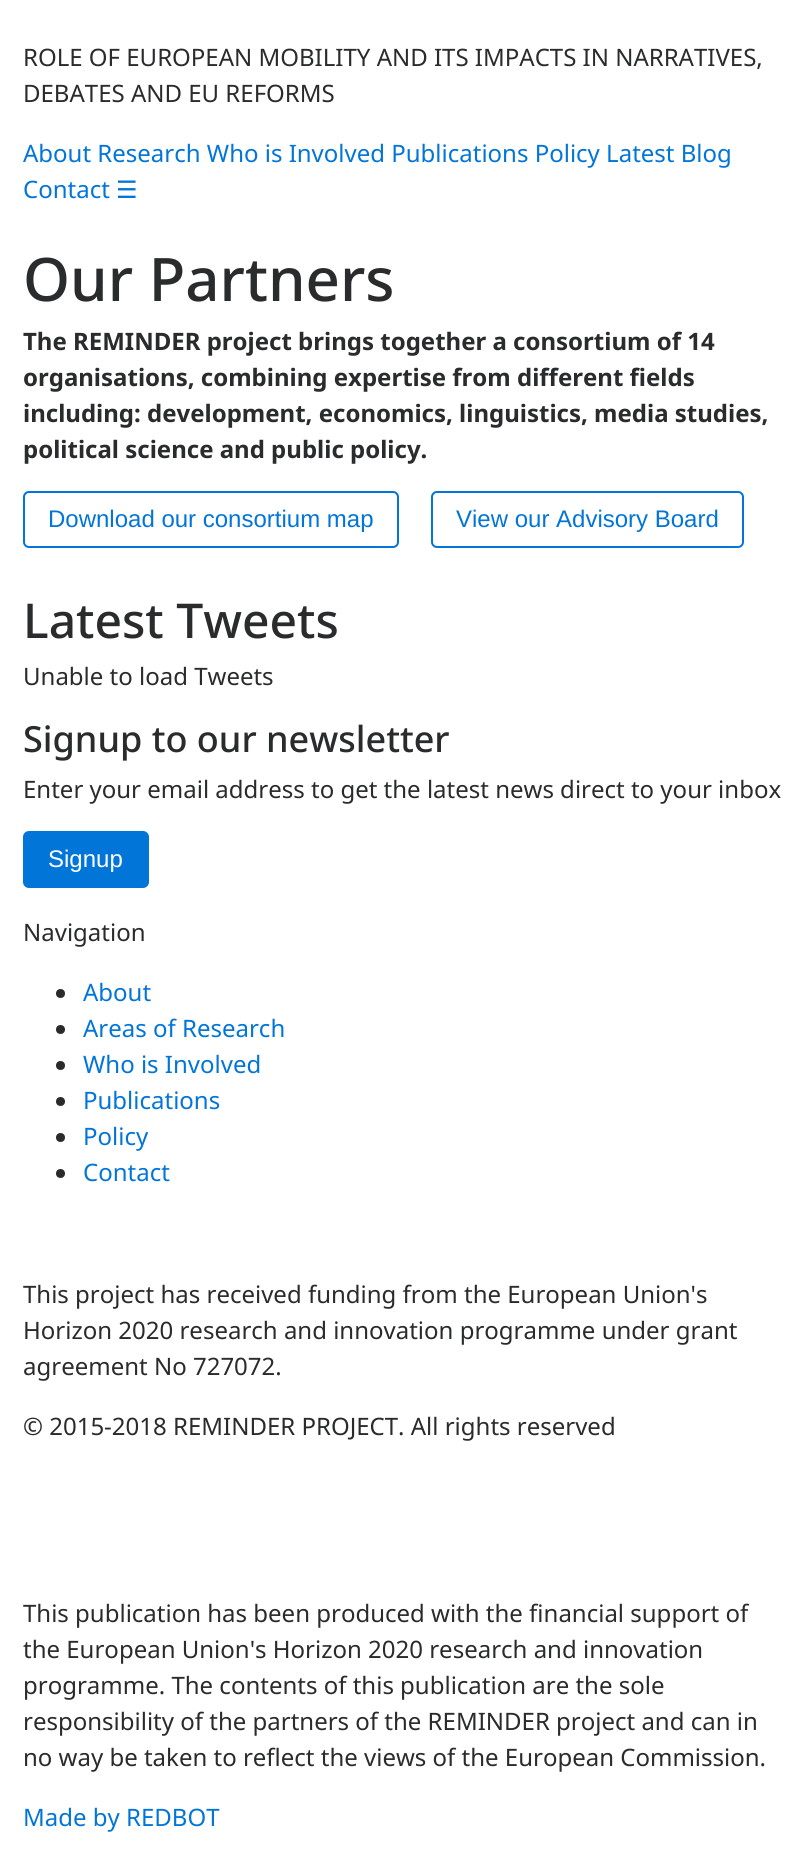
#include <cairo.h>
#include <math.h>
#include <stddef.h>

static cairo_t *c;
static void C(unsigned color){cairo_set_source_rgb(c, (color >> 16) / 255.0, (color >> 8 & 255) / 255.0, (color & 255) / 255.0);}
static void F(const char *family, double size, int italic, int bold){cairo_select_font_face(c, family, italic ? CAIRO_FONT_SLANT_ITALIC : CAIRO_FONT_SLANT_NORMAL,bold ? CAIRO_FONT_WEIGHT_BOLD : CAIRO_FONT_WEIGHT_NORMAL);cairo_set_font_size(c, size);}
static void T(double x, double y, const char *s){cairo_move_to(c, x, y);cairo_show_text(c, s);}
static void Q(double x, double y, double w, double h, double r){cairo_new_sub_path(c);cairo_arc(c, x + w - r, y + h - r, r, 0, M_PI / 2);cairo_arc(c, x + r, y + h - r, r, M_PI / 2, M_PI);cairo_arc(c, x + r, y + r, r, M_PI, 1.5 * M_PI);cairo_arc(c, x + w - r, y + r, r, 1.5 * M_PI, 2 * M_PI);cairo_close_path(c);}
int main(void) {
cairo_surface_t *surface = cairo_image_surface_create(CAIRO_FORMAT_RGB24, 804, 1867);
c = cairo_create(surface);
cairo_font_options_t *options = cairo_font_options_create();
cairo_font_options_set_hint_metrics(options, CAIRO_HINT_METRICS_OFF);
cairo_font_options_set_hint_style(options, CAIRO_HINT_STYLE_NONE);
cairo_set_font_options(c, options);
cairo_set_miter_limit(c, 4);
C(0xffffff);
cairo_paint(c);
F("Noto Sans",24,0,0);
C(0x292b2c);
T(23,66,"ROLE OF EUROPEAN MOBILITY AND ITS IMPACTS IN NARRATIVES,");
T(23,102,"DEBATES AND EU REFORMS");
C(0x0275d8);
T(23,162,"About Research Who is Involved Publications Policy Latest Blog");
T(23,198,"Contact");
F("DejaVu Sans",24,0,0);
T(116,198,"☰");
F("Noto Sans Medium",60,0,0);
C(0x292b2c);
T(23,301,"Our Partners");
F("Noto Sans",24,0,1);
T(23,350,"The REMINDER project brings together a consortium of 14");
T(23,386,"organisations, combining expertise from different fields");
T(23,422,"including: development, economics, linguistics, media studies,");
T(23,458,"political science and public policy.");
Q(24,492,374,55,5);
C(0x0275d8);
cairo_stroke(c);
F("Liberation Sans",24,0,0);
T(48,527,"Download our consortium map");
Q(432,492,311,55,5);
cairo_stroke(c);
T(456,527,"View our Advisory Board");
F("Noto Sans Medium",48,0,0);
C(0x292b2c);
T(23,638,"Latest Tweets");
F("Noto Sans",24,0,0);
T(23,685,"Unable to load Tweets");
F("Noto Sans Medium",36,0,0);
T(23,752,"Signup to our newsletter");
F("Noto Sans",24,0,0);
T(23,798,"Enter your email address to get the latest news direct to your inbox");
C(0x0275d8);
Q(24,832,124,55,5);
cairo_fill_preserve(c);
cairo_stroke(c);
F("Liberation Sans",24,0,0);
C(0xffffff);
T(48,867,"Signup");
F("Noto Sans",24,0,0);
C(0x292b2c);
T(23,941,"Navigation");
cairo_new_path(c);
cairo_arc(c,60.5,993.5,4.5,0,2 * M_PI);
cairo_fill(c);
C(0x0275d8);
T(83,1001,"About");
C(0x292b2c);
cairo_new_path(c);
cairo_arc(c,60.5,1029.5,4.5,0,2 * M_PI);
cairo_fill(c);
C(0x0275d8);
T(83,1037,"Areas of Research");
C(0x292b2c);
cairo_new_path(c);
cairo_arc(c,60.5,1065.5,4.5,0,2 * M_PI);
cairo_fill(c);
C(0x0275d8);
T(83,1073,"Who is Involved");
C(0x292b2c);
cairo_new_path(c);
cairo_arc(c,60.5,1101.5,4.5,0,2 * M_PI);
cairo_fill(c);
C(0x0275d8);
T(83,1109,"Publications");
C(0x292b2c);
cairo_new_path(c);
cairo_arc(c,60.5,1137.5,4.5,0,2 * M_PI);
cairo_fill(c);
C(0x0275d8);
T(83,1145,"Policy");
C(0x292b2c);
cairo_new_path(c);
cairo_arc(c,60.5,1173.5,4.5,0,2 * M_PI);
cairo_fill(c);
C(0x0275d8);
T(83,1181,"Contact");
C(0x292b2c);
T(23,1303,"This project has received funding from the European Union's");
T(23,1339,"Horizon 2020 research and innovation programme under grant");
T(23,1375,"agreement No 727072.");
T(23,1435,"© 2015-2018 REMINDER PROJECT. All rights reserved");
T(23,1622,"This publication has been produced with the financial support of");
T(23,1658,"the European Union's Horizon 2020 research and innovation");
T(23,1694,"programme. The contents of this publication are the sole");
T(23,1730,"responsibility of the partners of the REMINDER project and can in");
T(23,1766,"no way be taken to reflect the views of the European Commission.");
C(0x0275d8);
T(23,1826,"Made by REDBOT");
cairo_surface_write_to_png(surface, "o.png");
cairo_font_options_destroy(options);
cairo_destroy(c);
cairo_surface_destroy(surface);
return 0;
}
